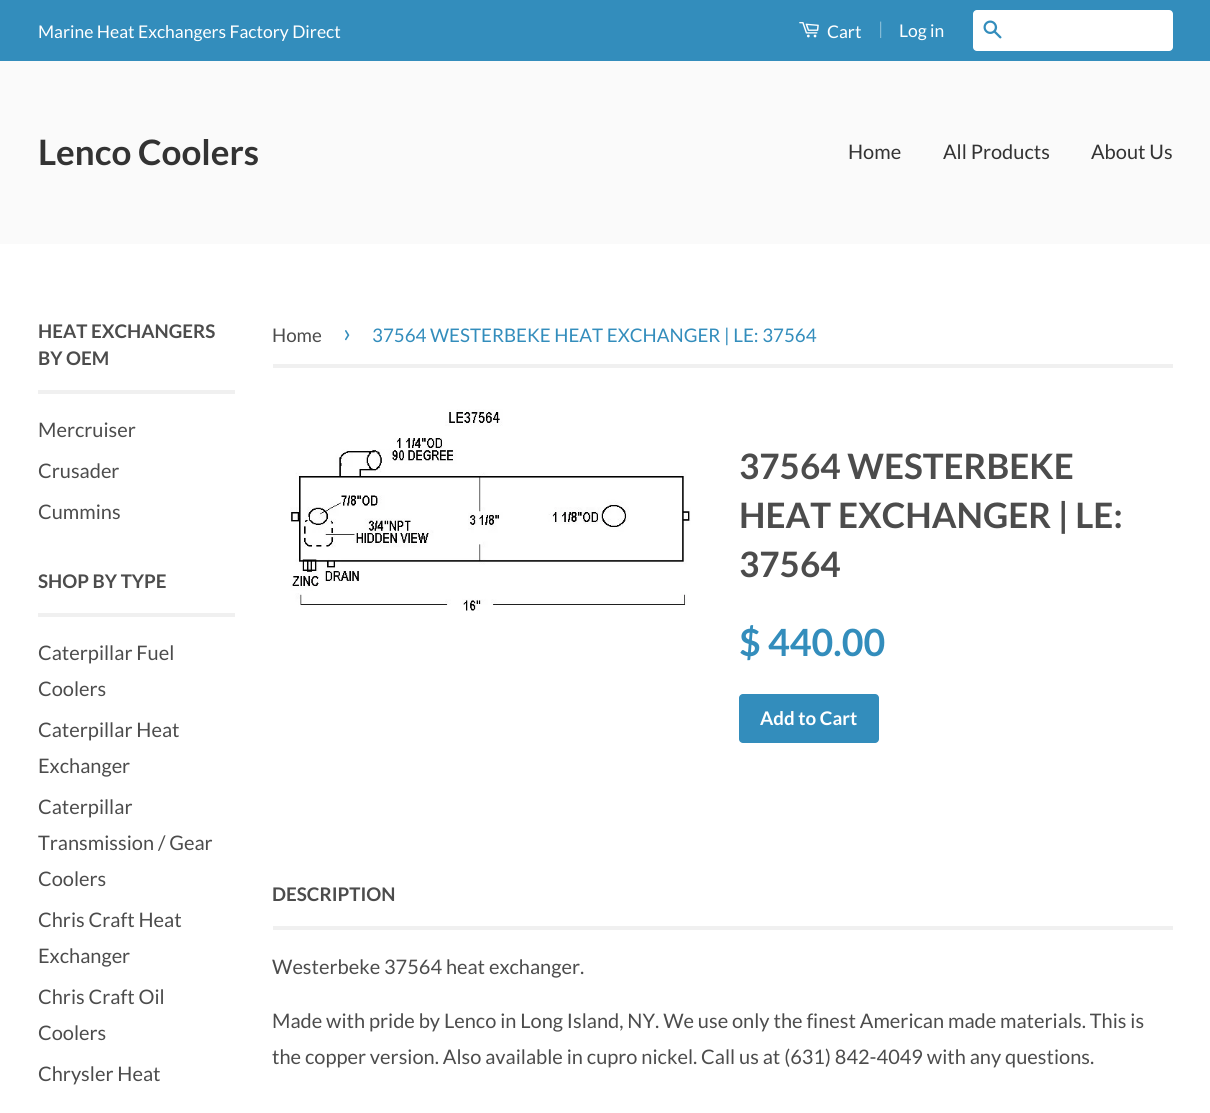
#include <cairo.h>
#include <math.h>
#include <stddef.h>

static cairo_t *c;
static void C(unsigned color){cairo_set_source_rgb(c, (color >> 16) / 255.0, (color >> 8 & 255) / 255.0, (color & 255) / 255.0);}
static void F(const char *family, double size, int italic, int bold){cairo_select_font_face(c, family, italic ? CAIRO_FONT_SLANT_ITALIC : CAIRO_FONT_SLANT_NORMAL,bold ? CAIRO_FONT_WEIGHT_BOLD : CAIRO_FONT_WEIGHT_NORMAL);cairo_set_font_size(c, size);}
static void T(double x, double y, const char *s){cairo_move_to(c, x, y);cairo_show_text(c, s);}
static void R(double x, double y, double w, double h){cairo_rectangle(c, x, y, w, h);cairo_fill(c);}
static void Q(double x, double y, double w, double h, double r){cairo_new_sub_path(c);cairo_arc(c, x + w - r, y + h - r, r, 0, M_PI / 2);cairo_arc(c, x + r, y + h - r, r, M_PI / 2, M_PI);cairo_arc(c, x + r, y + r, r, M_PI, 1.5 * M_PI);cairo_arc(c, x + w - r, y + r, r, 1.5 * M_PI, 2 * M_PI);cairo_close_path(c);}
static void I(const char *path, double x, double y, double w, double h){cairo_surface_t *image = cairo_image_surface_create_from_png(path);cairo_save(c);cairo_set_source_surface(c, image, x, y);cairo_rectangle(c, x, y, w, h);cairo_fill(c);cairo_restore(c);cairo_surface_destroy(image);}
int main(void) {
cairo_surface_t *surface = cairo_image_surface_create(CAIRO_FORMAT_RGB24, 1210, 1113);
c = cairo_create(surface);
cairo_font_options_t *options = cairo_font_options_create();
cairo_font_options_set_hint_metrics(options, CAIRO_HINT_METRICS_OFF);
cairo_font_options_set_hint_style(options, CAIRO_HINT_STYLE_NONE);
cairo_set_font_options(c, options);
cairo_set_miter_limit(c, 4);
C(0xffffff);
cairo_paint(c);
C(0x338dbc);
R(0,0,1210,61);
F("Lato",17.5,0,0);
C(0xffffff);
T(38,38,"Marine Heat Exchangers Factory Direct");
I("1.png",799,22,20,16);
T(827,38,"Cart");
C(0x85bbd7);
T(878,35,"|");
C(0xffffff);
T(899,37,"Log in");
Q(973,10,200,41,4);
cairo_fill(c);
I("2.png",983,20,19,19);
C(0xfafafa);
R(0,61,1210,183);
F("Lato",35,0,1);
C(0x333333);
T(38,165,"Lenco Coolers");
F("Lato",20,0,0);
T(848,159,"Home");
T(943,159,"All Products");
T(1091,159,"About Us");
C(0xf0f0f0);
R(38,390,197,4);
F("Lato",18.75,0,1);
C(0x4c4c4c);
T(38,338,"HEAT EXCHANGERS");
T(38,365,"BY OEM");
F("Lato",20,0,0);
T(38,437,"Mercruiser");
T(38,478,"Crusader");
T(38,519,"Cummins");
C(0xf0f0f0);
R(38,613,197,4);
F("Lato",18.75,0,1);
C(0x4c4c4c);
T(38,588,"SHOP BY TYPE");
F("Lato",20,0,0);
T(38,660,"Caterpillar Fuel");
T(38,696,"Coolers");
T(38,737,"Caterpillar Heat");
T(38,773,"Exchanger");
T(38,814,"Caterpillar");
T(38,850,"Transmission / Gear");
T(38,886,"Coolers");
T(38,927,"Chris Craft Heat");
T(38,963,"Exchanger");
T(38,1004,"Chris Craft Oil");
T(38,1040,"Coolers");
T(38,1081,"Chrysler Heat");
C(0xf0f0f0);
R(273,364,900,4);
F("Lato",18.75,0,0);
C(0x4c4c4c);
T(272,342,"Home");
F("Lato",26,0,0);
C(0x338dbc);
T(343,342,"›");
F("Lato",18.75,0,0);
T(372,342,"37564 WESTERBEKE HEAT EXCHANGER | LE: 37564");
I("3.png",290,409,401,202);
F("Lato",35,0,1);
C(0x4c4c4c);
T(739,479,"37564 WESTERBEKE");
T(739,528,"HEAT EXCHANGER | LE:");
T(739,577,"37564");
F("Lato",37.5,0,1);
C(0x338dbc);
T(739,656,"$ 440.00");
Q(739,694,140,49,4);
cairo_fill(c);
F("Lato",18.75,0,1);
C(0xffffff);
T(760,725,"Add to Cart");
C(0xf0f0f0);
R(273,926,900,4);
C(0x4c4c4c);
T(272,901,"DESCRIPTION");
F("Lato",20,0,0);
T(272,974,"Westerbeke 37564 heat exchanger.");
T(272,1028,"Made with pride by Lenco in Long Island, NY. We use only the finest American made materials. This is");
T(272,1064,"the copper version. Also available in cupro nickel. Call us at (631) 842-4049 with any questions.");
cairo_surface_write_to_png(surface, "o.png");
cairo_font_options_destroy(options);
cairo_destroy(c);
cairo_surface_destroy(surface);
return 0;
}
